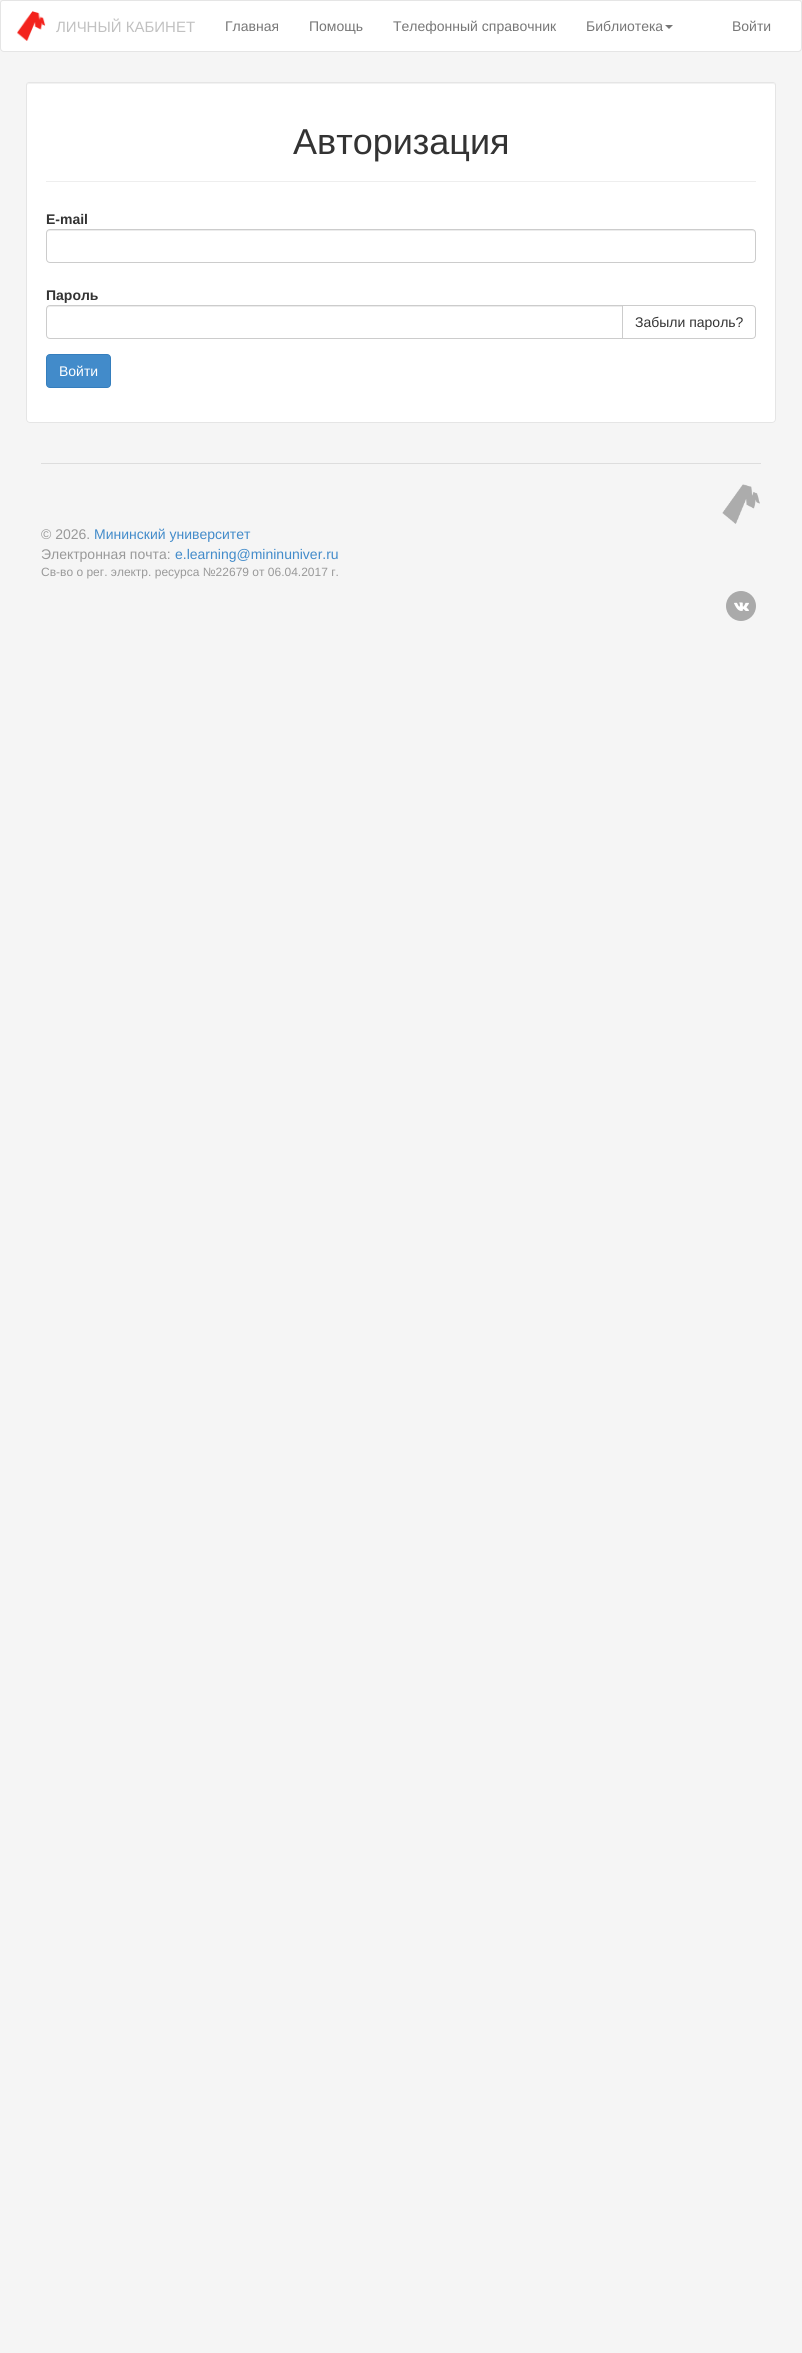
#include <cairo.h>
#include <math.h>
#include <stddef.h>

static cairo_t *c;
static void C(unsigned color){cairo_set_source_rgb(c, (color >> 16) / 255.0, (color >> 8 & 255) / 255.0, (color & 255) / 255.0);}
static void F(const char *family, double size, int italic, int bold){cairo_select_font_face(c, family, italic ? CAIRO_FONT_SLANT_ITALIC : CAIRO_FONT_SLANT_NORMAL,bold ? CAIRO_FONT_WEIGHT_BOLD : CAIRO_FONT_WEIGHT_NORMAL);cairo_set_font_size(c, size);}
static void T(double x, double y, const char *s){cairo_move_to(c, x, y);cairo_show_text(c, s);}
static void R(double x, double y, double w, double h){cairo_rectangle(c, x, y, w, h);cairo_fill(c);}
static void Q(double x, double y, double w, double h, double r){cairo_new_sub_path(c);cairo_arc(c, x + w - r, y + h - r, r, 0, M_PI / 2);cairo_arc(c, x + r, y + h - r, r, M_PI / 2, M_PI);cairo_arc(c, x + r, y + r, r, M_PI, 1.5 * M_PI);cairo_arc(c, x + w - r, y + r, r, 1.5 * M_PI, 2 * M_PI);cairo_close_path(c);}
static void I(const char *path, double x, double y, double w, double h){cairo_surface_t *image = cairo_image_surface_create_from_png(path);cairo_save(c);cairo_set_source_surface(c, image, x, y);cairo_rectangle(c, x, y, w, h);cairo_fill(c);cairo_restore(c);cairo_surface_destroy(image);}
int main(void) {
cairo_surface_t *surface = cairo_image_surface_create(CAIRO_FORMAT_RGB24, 802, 2353);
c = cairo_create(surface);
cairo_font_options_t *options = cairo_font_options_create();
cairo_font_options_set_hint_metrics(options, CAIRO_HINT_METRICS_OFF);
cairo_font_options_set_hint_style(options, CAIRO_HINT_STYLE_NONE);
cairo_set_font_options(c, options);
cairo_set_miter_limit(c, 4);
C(0xf5f5f5);
cairo_paint(c);
C(0xffffff);
cairo_new_path(c);
cairo_move_to(c,3,.5);
cairo_line_to(c,799,.5);
cairo_curve_to(c,800.5,.5,801.5,1.5,801.5,3);
cairo_line_to(c,801.5,48);
cairo_curve_to(c,801.5,50,800,51.5,798,51.5);
cairo_line_to(c,4,51.5);
cairo_curve_to(c,2,51.5,.5,50,.5,48);
cairo_line_to(c,.5,3);
cairo_curve_to(c,.5,1.5,1.5,.5,3,.5);
cairo_close_path(c);
cairo_fill_preserve(c);
C(0xe5e5e5);
cairo_set_line_width(c,1);
cairo_stroke(c);
I("1.png",17,11,29,30);
F("Liberation Sans",15,0,0);
C(0xc1c1c1);
T(56,32,"ЛИЧНЫЙ КАБИНЕТ");
F("Liberation Sans",14,0,0);
C(0x777777);
T(225,31,"Главная");
T(309,31,"Помощь");
T(393,31,"Телефонный справочник");
T(586,31,"Библиотека");
cairo_new_path(c);
cairo_move_to(c,665,25);
cairo_line_to(c,673,25);
cairo_line_to(c,669,29);
cairo_close_path(c);
cairo_fill(c);
T(732,31,"Войти");
C(0xffffff);
cairo_new_path(c);
cairo_move_to(c,29,82);
cairo_line_to(c,773,82);
cairo_curve_to(c,774.5,82,776,83.5,776,85);
cairo_line_to(c,776,419);
cairo_curve_to(c,776,421,774,423,772,423);
cairo_line_to(c,30,423);
cairo_curve_to(c,28,423,26,421,26,419);
cairo_line_to(c,26,85);
cairo_curve_to(c,26,83.5,27.5,82,29,82);
cairo_close_path(c);
cairo_fill(c);
C(0xf2f2f2);
cairo_new_path(c);
cairo_move_to(c,29,84);
cairo_line_to(c,773,84);
cairo_curve_to(c,774,84,775,85,775,86);
cairo_curve_to(c,775,85,775,83,773,83);
cairo_line_to(c,29,83);
cairo_curve_to(c,27,83,27,85,27,86);
cairo_curve_to(c,27,85,28,84,29,84);
cairo_close_path(c);
cairo_fill(c);
cairo_new_path(c);
cairo_move_to(c,29,82.5);
cairo_line_to(c,773,82.5);
cairo_curve_to(c,774.5,82.5,775.5,83.5,775.5,85);
cairo_line_to(c,775.5,419);
cairo_curve_to(c,775.5,421,774,422.5,772,422.5);
cairo_line_to(c,30,422.5);
cairo_curve_to(c,28,422.5,26.5,421,26.5,419);
cairo_line_to(c,26.5,85);
cairo_curve_to(c,26.5,83.5,27.5,82.5,29,82.5);
cairo_close_path(c);
C(0xe5e5e5);
cairo_stroke(c);
C(0xeeeeee);
R(46,181,710,1);
F("Liberation Sans",36,0,0);
C(0x333333);
T(293,154,"Авторизация");
F("Liberation Sans",14,0,1);
T(46,224,"E-mail");
C(0xececec);
cairo_new_path(c);
cairo_move_to(c,50,231);
cairo_line_to(c,752,231);
cairo_curve_to(c,754,231,755,232,755,234);
cairo_curve_to(c,755,232,754,230,752,230);
cairo_line_to(c,50,230);
cairo_curve_to(c,48,230,47,232,47,234);
cairo_curve_to(c,47,232,48,231,50,231);
cairo_close_path(c);
cairo_fill(c);
Q(46.5,229.5,709,33,3.5);
C(0xcccccc);
cairo_stroke(c);
C(0x333333);
T(46,300,"Пароль");
cairo_new_path(c);
cairo_move_to(c,622.5,305.5);
cairo_line_to(c,752,305.5);
cairo_curve_to(c,754,305.5,755.5,307,755.5,309);
cairo_line_to(c,755.5,335);
cairo_curve_to(c,755.5,337,754,338.5,752,338.5);
cairo_line_to(c,622.5,338.5);
cairo_close_path(c);
C(0xcccccc);
cairo_stroke(c);
C(0xffffff);
cairo_new_path(c);
cairo_move_to(c,50,305);
cairo_line_to(c,623,305);
cairo_line_to(c,623,339);
cairo_line_to(c,50,339);
cairo_curve_to(c,48,339,46,337,46,335);
cairo_line_to(c,46,309);
cairo_curve_to(c,46,307,48,305,50,305);
cairo_close_path(c);
cairo_fill(c);
C(0xececec);
cairo_new_path(c);
cairo_move_to(c,50,307);
cairo_line_to(c,622,307);
cairo_line_to(c,622,306);
cairo_line_to(c,50,306);
cairo_curve_to(c,48,306,47,307,47,309);
cairo_line_to(c,47,310);
cairo_curve_to(c,47,308,48,307,50,307);
cairo_close_path(c);
cairo_fill(c);
cairo_new_path(c);
cairo_move_to(c,50,305.5);
cairo_line_to(c,622.5,305.5);
cairo_line_to(c,622.5,338.5);
cairo_line_to(c,50,338.5);
cairo_curve_to(c,48,338.5,46.5,337,46.5,335);
cairo_line_to(c,46.5,309);
cairo_curve_to(c,46.5,307,48,305.5,50,305.5);
cairo_close_path(c);
C(0xcccccc);
cairo_stroke(c);
F("Liberation Sans",14,0,0);
C(0x333333);
T(635,327,"Забыли пароль?");
C(0x428bca);
Q(46.5,354.5,64,33,3.5);
cairo_fill_preserve(c);
C(0x357ebd);
cairo_stroke(c);
C(0xffffff);
T(59,376,"Войти");
C(0xdddddd);
R(41,463,720,1);
I("2.png",722,484,38,40);
C(0x999999);
T(41,539,"© 2026.");
C(0x428bca);
T(94,539,"Мининский университет");
C(0x999999);
T(41,559,"Электронная почта:");
C(0x428bca);
T(175,559,"e.learning@mininuniver.ru");
F("Liberation Sans",12,0,0);
C(0x999999);
T(41,576,"Св-во о рег. электр. ресурса №22679 от 06.04.2017 г.");
C(0xaaaaaa);
cairo_new_path(c);
cairo_arc(c,741,606,15,0,2 * M_PI);
cairo_fill(c);
I("3.png",734,602,15,9);
cairo_surface_write_to_png(surface, "o.png");
cairo_font_options_destroy(options);
cairo_destroy(c);
cairo_surface_destroy(surface);
return 0;
}
